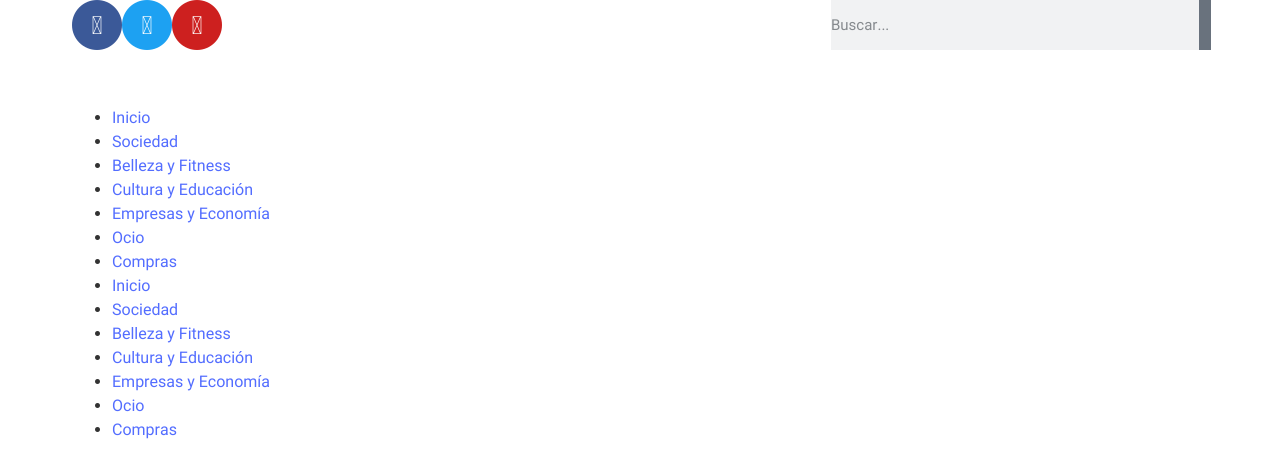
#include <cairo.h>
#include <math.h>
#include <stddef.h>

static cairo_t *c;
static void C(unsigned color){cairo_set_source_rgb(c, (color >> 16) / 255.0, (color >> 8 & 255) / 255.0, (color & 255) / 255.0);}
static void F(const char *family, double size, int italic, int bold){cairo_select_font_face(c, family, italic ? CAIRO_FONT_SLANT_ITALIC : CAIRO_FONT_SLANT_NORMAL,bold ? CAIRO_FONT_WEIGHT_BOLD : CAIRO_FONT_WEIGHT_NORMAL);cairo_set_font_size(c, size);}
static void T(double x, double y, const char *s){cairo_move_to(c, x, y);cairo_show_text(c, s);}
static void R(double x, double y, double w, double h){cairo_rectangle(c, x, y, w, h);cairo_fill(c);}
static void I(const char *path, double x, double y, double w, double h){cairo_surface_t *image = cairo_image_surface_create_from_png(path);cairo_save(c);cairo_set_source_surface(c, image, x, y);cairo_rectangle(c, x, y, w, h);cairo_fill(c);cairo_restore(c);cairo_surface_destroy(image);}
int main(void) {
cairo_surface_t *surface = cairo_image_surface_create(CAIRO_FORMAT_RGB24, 1283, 463);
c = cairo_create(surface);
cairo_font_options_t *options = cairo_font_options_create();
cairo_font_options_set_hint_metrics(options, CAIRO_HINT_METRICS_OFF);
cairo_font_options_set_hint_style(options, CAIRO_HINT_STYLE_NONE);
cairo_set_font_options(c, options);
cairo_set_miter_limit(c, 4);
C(0xffffff);
cairo_paint(c);
C(0x3b5998);
cairo_arc(c,97,25,25,0,2 * M_PI);
cairo_fill(c);
I("1.png",92,16,10,18);
C(0x1da1f2);
cairo_arc(c,147,25,25,0,2 * M_PI);
cairo_fill(c);
I("2.png",142,16,10,18);
C(0xcd201f);
cairo_arc(c,197,25,25,0,2 * M_PI);
cairo_fill(c);
I("3.png",192,16,10,18);
C(0xf1f2f3);
R(831,0,368,50);
F("Roboto",15,0,0);
C(0x868a8e);
T(831,30,"Buscar...");
C(0x69727d);
R(1199,0,12,50);
C(0x333333);
cairo_new_path(c);
cairo_arc(c,97.5,117.5,2.5,0,2 * M_PI);
cairo_fill(c);
F("Roboto",16,0,0);
C(0x536dff);
T(112,123,"Inicio");
C(0x333333);
cairo_new_path(c);
cairo_arc(c,97.5,141.5,2.5,0,2 * M_PI);
cairo_fill(c);
C(0x536dff);
T(112,147,"Sociedad");
C(0x333333);
cairo_new_path(c);
cairo_arc(c,97.5,165.5,2.5,0,2 * M_PI);
cairo_fill(c);
C(0x536dff);
T(112,171,"Belleza y Fitness");
C(0x333333);
cairo_new_path(c);
cairo_arc(c,97.5,189.5,2.5,0,2 * M_PI);
cairo_fill(c);
C(0x536dff);
T(112,195,"Cultura y Educación");
C(0x333333);
cairo_new_path(c);
cairo_arc(c,97.5,213.5,2.5,0,2 * M_PI);
cairo_fill(c);
C(0x536dff);
T(112,219,"Empresas y Economía");
C(0x333333);
cairo_new_path(c);
cairo_arc(c,97.5,237.5,2.5,0,2 * M_PI);
cairo_fill(c);
C(0x536dff);
T(112,243,"Ocio");
C(0x333333);
cairo_new_path(c);
cairo_arc(c,97.5,261.5,2.5,0,2 * M_PI);
cairo_fill(c);
C(0x536dff);
T(112,267,"Compras");
C(0x333333);
cairo_new_path(c);
cairo_arc(c,97.5,285.5,2.5,0,2 * M_PI);
cairo_fill(c);
C(0x536dff);
T(112,291,"Inicio");
C(0x333333);
cairo_new_path(c);
cairo_arc(c,97.5,309.5,2.5,0,2 * M_PI);
cairo_fill(c);
C(0x536dff);
T(112,315,"Sociedad");
C(0x333333);
cairo_new_path(c);
cairo_arc(c,97.5,333.5,2.5,0,2 * M_PI);
cairo_fill(c);
C(0x536dff);
T(112,339,"Belleza y Fitness");
C(0x333333);
cairo_new_path(c);
cairo_arc(c,97.5,357.5,2.5,0,2 * M_PI);
cairo_fill(c);
C(0x536dff);
T(112,363,"Cultura y Educación");
C(0x333333);
cairo_new_path(c);
cairo_arc(c,97.5,381.5,2.5,0,2 * M_PI);
cairo_fill(c);
C(0x536dff);
T(112,387,"Empresas y Economía");
C(0x333333);
cairo_new_path(c);
cairo_arc(c,97.5,405.5,2.5,0,2 * M_PI);
cairo_fill(c);
C(0x536dff);
T(112,411,"Ocio");
C(0x333333);
cairo_new_path(c);
cairo_arc(c,97.5,429.5,2.5,0,2 * M_PI);
cairo_fill(c);
C(0x536dff);
T(112,435,"Compras");
cairo_surface_write_to_png(surface, "o.png");
cairo_font_options_destroy(options);
cairo_destroy(c);
cairo_surface_destroy(surface);
return 0;
}
